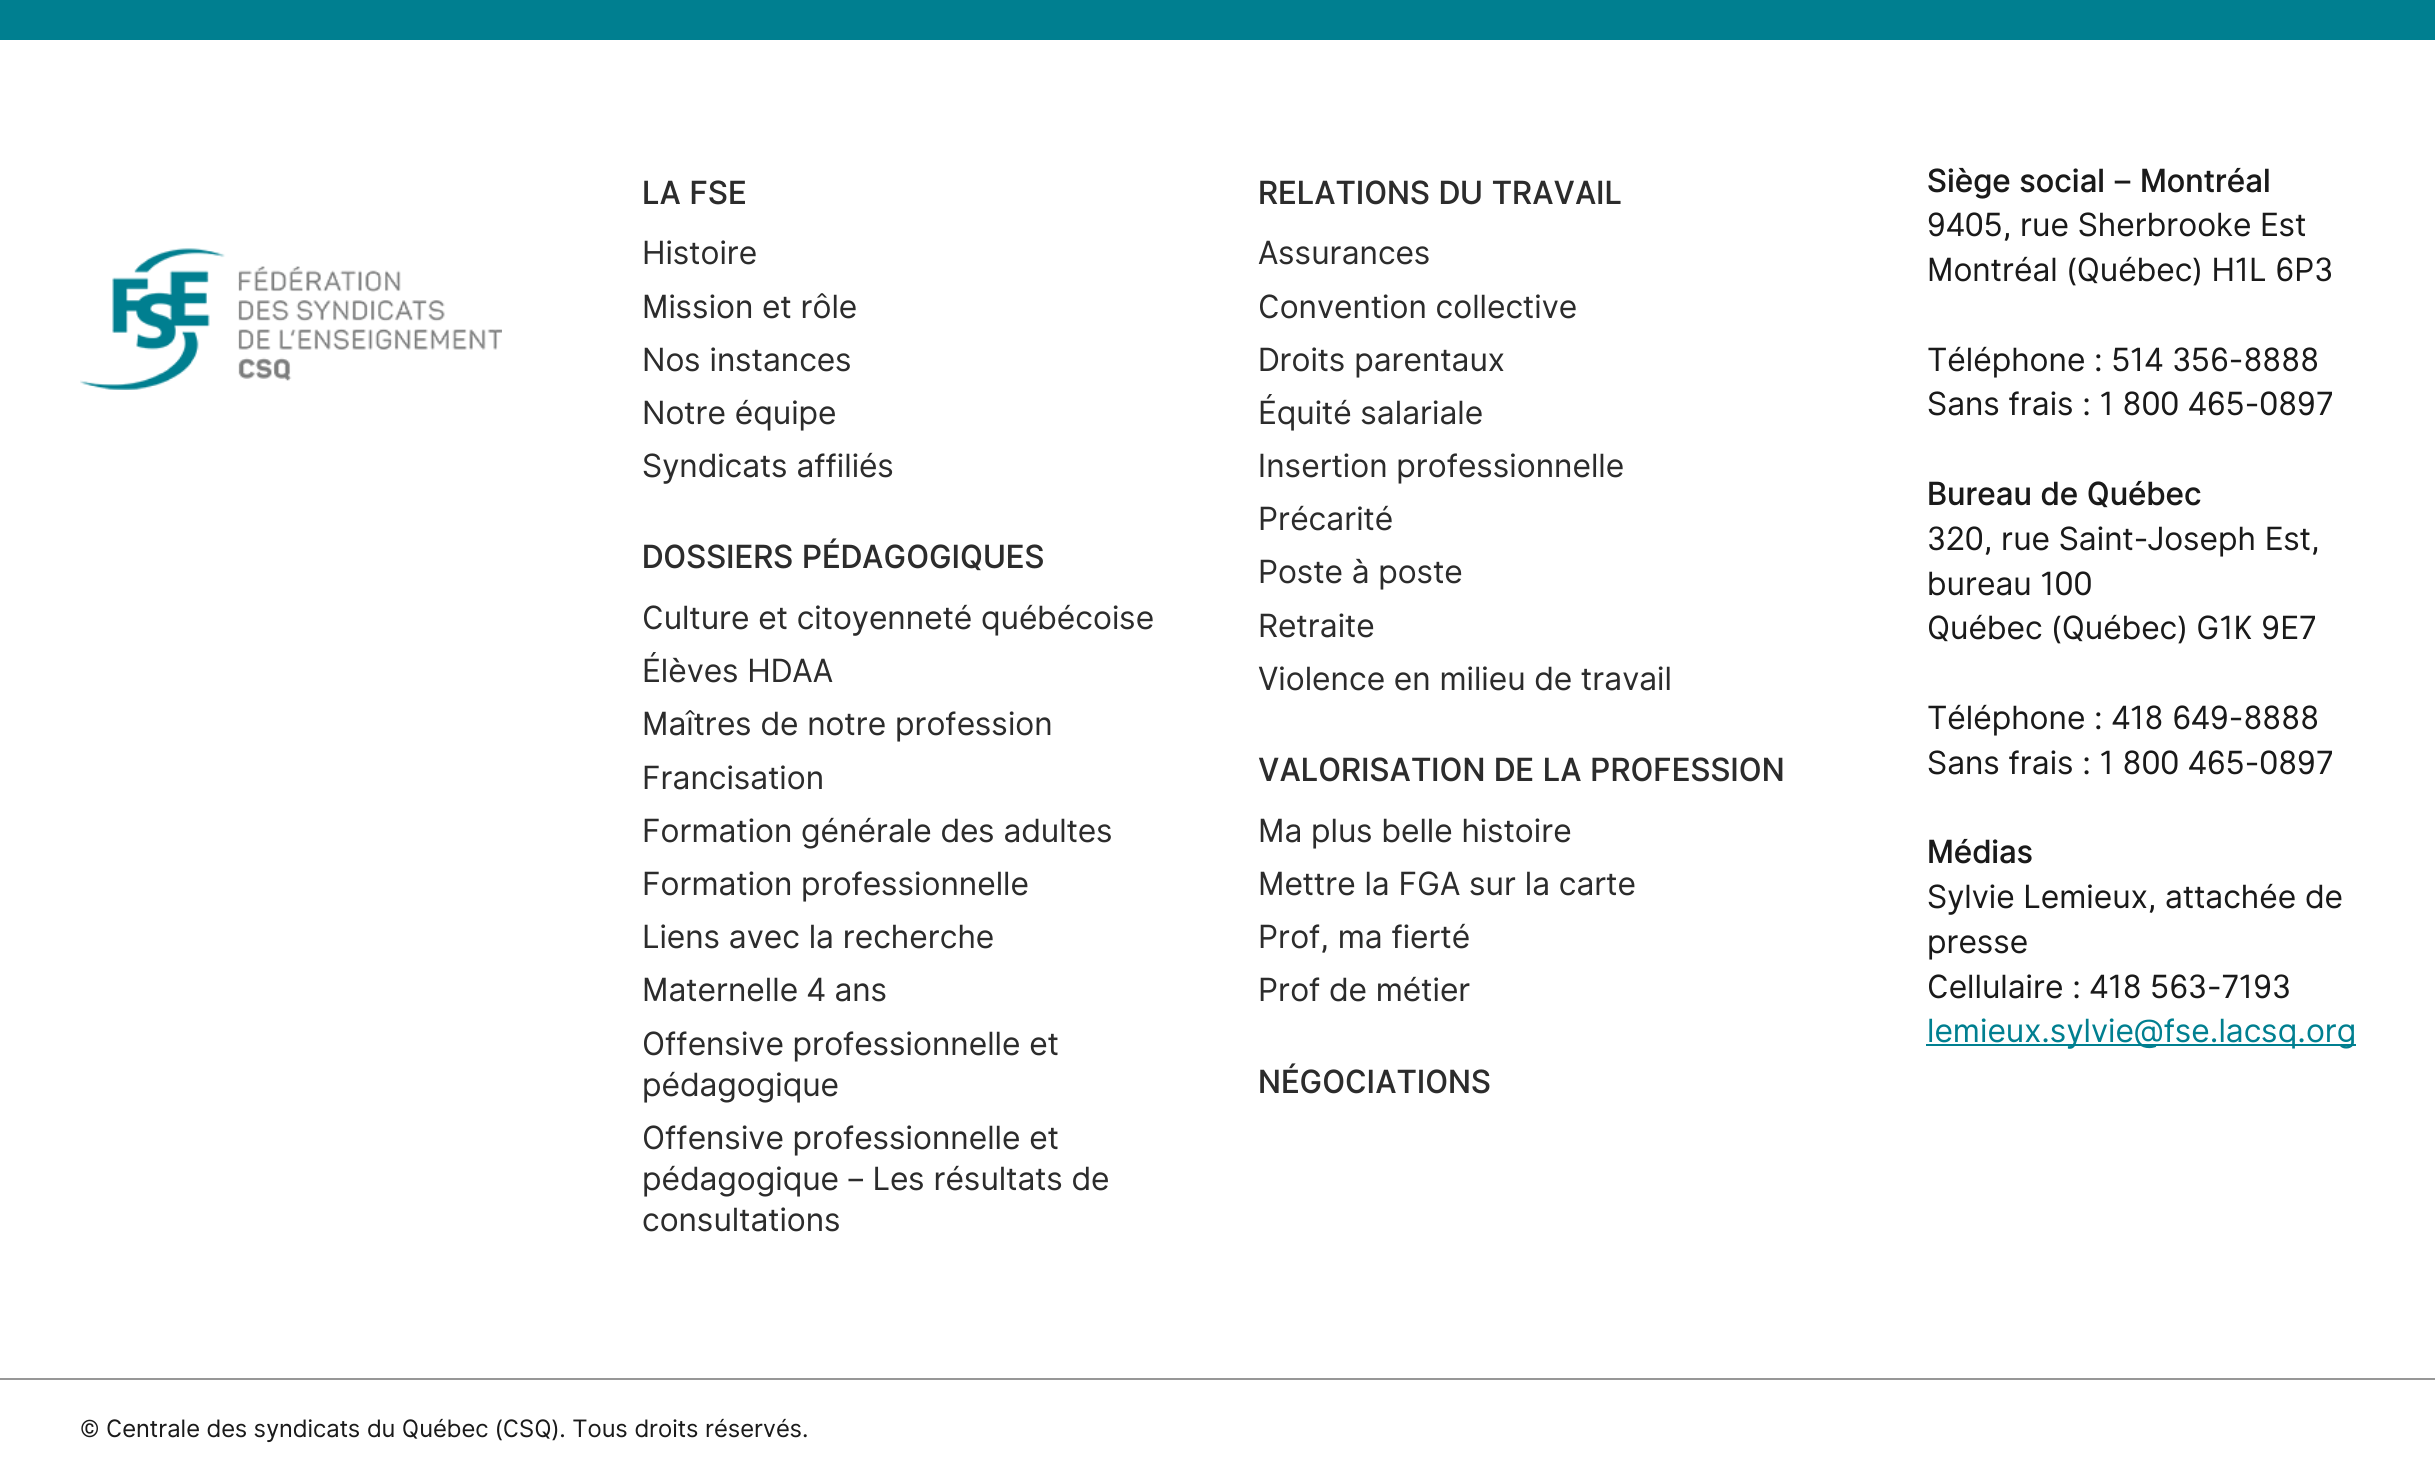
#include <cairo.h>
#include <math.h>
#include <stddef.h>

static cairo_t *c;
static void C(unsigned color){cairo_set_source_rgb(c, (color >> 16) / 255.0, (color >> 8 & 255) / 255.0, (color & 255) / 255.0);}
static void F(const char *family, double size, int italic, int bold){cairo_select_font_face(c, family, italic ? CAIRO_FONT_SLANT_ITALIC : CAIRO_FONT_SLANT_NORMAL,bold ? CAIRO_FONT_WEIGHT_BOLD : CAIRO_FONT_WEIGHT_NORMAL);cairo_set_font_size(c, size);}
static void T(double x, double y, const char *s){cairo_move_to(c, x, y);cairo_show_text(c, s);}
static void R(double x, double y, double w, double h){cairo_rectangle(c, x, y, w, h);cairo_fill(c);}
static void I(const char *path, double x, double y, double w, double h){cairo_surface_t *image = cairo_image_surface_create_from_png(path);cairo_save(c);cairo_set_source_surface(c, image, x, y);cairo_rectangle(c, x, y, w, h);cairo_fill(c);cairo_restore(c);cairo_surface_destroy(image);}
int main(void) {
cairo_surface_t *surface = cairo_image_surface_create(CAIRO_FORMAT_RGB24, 2435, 1478);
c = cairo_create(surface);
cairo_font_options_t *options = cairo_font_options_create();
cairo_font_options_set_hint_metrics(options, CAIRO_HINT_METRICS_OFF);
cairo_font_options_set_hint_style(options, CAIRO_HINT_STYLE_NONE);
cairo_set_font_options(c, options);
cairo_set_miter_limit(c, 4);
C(0xffffff);
cairo_paint(c);
C(0x007f90);
R(0,0,2435,40);
I("1.png",80,248,422,142);
F("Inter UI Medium",32,0,0);
C(0x2c2c2c);
T(642,204,"LA FSE");
F("Inter UI",32,0,0);
T(642,264,"Histoire");
T(642,318,"Mission et rôle");
T(642,371,"Nos instances");
T(642,424,"Notre équipe");
T(642,477,"Syndicats affiliés");
F("Inter UI Medium",32,0,0);
T(642,568,"DOSSIERS PÉDAGOGIQUES");
F("Inter UI",32,0,0);
T(642,629,"Culture et citoyenneté québécoise");
T(642,682,"Élèves HDAA");
T(642,735,"Maîtres de notre profession");
T(642,789,"Francisation");
T(642,842,"Formation générale des adultes");
T(642,895,"Formation professionnelle");
T(642,948,"Liens avec la recherche");
T(642,1001,"Maternelle 4 ans");
T(642,1055,"Offensive professionnelle et");
T(642,1096,"pédagogique");
T(642,1149,"Offensive professionnelle et");
T(642,1190,"pédagogique – Les résultats de");
T(642,1231,"consultations");
F("Inter UI Medium",32,0,0);
T(1258,204,"RELATIONS DU TRAVAIL");
F("Inter UI",32,0,0);
T(1258,264,"Assurances");
T(1258,318,"Convention collective");
T(1258,371,"Droits parentaux");
T(1258,424,"Équité salariale");
T(1258,477,"Insertion professionnelle");
T(1258,530,"Précarité");
T(1258,583,"Poste à poste");
T(1258,637,"Retraite");
T(1258,690,"Violence en milieu de travail");
F("Inter UI Medium",32,0,0);
T(1258,781,"VALORISATION DE LA PROFESSION");
F("Inter UI",32,0,0);
T(1258,842,"Ma plus belle histoire");
T(1258,895,"Mettre la FGA sur la carte");
T(1258,948,"Prof, ma fierté");
T(1258,1001,"Prof de métier");
F("Inter UI Medium",32,0,0);
T(1258,1093,"NÉGOCIATIONS");
C(0x1a1a1a);
T(1927,192,"Siège social – Montréal");
F("Inter UI",32,0,0);
T(1927,236,"9405, rue Sherbrooke Est");
T(1927,281,"Montréal (Québec) H1L 6P3");
T(1927,371,"Téléphone : 514 356-8888");
T(1927,415,"Sans frais : 1 800 465-0897");
F("Inter UI Medium",32,0,0);
T(1927,505,"Bureau de Québec");
F("Inter UI",32,0,0);
T(1927,550,"320, rue Saint-Joseph Est,");
T(1927,595,"bureau 100");
T(1927,639,"Québec (Québec) G1K 9E7");
T(1927,729,"Téléphone : 418 649-8888");
T(1927,774,"Sans frais : 1 800 465-0897");
F("Inter UI Medium",32,0,0);
T(1927,863,"Médias");
F("Inter UI",32,0,0);
T(1927,908,"Sylvie Lemieux, attachée de");
T(1927,953,"presse");
T(1927,998,"Cellulaire : 418 563-7193");
C(0x007f90);
R(1926,1044,430,2);
T(1927,1042,"lemieux.sylvie@fse.lacsq.org");
C(0x979797);
R(0,1378,2435,2);
F("Inter UI",24,0,0);
C(0x1a1a1a);
T(80,1437,"© Centrale des syndicats du Québec (CSQ). Tous droits réservés.");
cairo_surface_write_to_png(surface, "o.png");
cairo_font_options_destroy(options);
cairo_destroy(c);
cairo_surface_destroy(surface);
return 0;
}
